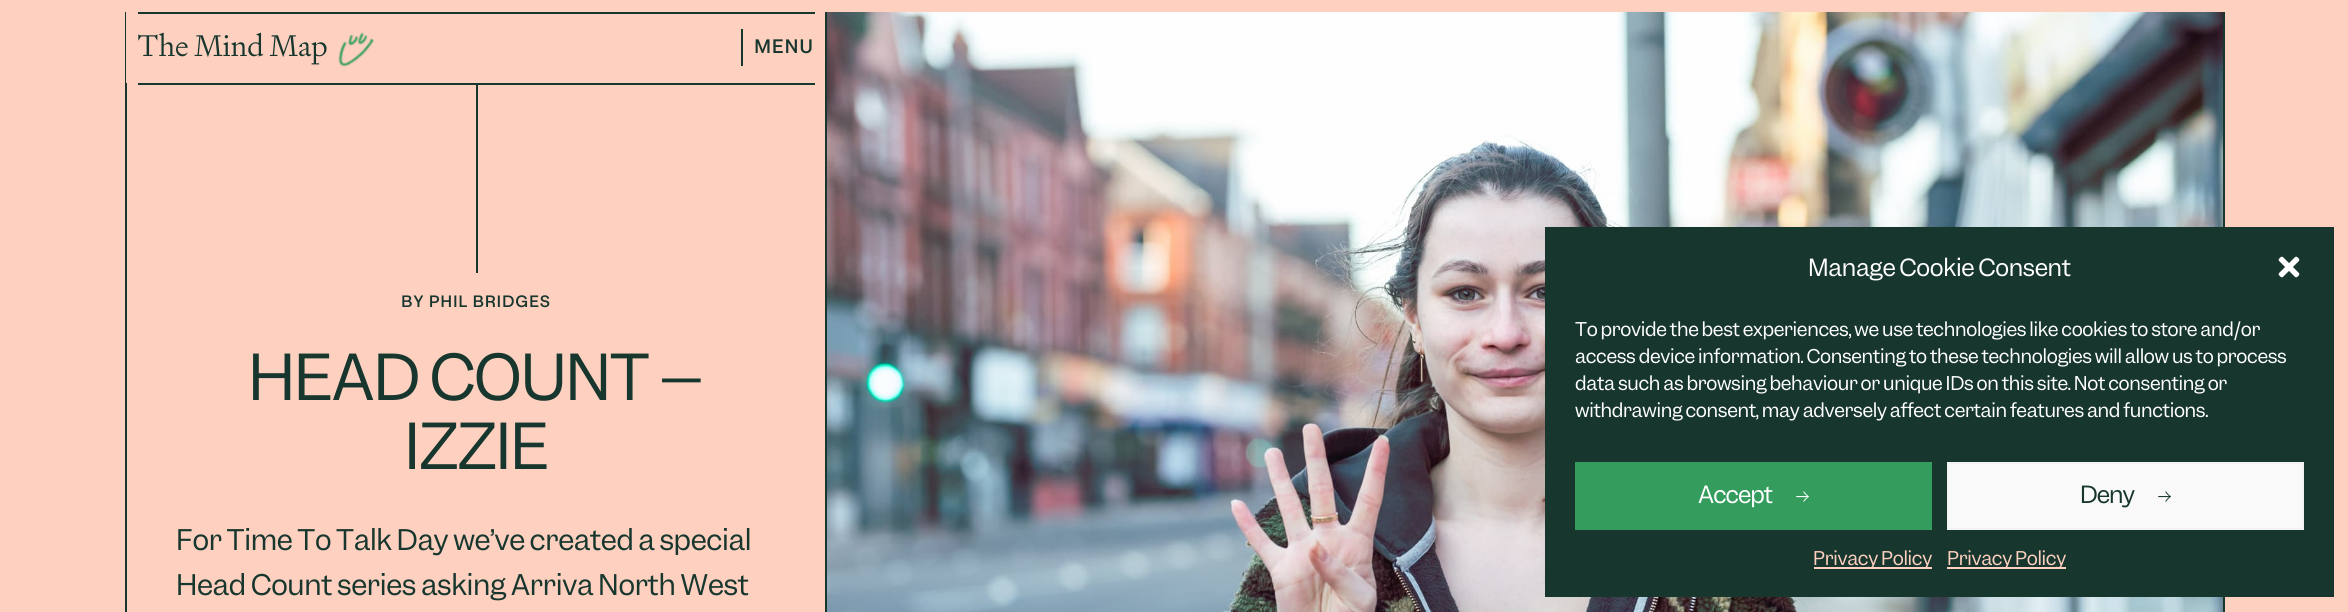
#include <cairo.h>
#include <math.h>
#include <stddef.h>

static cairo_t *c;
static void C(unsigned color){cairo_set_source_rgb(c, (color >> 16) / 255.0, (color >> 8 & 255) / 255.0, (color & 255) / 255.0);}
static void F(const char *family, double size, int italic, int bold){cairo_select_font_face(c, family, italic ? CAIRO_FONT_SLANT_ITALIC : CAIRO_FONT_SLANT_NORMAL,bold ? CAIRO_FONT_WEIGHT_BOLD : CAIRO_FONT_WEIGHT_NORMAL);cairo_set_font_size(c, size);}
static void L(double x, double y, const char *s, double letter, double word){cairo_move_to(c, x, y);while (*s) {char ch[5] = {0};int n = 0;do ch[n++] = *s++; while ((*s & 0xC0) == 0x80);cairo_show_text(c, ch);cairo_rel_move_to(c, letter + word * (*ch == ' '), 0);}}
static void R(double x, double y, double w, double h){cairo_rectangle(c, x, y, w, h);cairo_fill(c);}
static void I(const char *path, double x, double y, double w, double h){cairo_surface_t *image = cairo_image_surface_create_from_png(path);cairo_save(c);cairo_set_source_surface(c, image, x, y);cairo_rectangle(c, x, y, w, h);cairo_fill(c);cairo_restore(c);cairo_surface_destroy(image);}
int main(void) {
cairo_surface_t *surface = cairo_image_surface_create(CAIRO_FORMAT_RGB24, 2348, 612);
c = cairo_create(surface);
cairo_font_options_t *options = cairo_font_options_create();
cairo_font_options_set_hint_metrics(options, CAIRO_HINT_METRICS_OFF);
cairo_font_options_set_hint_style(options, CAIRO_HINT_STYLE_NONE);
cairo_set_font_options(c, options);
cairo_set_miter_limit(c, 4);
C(0xfdd0bf);
cairo_paint(c);
C(0x17362e);
R(125,12,2,600);
C(0xfdd0bf);
R(126,12,1,71);
C(0x17362e);
R(138,12,677,2);
R(138,83,677,2);
F("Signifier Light",30,0,0);
L(137,56,"The Mind Map",-.3,0);
I("1.png",338,32,36,35);
C(0x17372e);
R(741,29,2,37);
F("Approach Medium",19.5,0,0);
C(0x17362e);
L(754,53,"MENU",.75,0);
R(2223,12,2,600);
R(476,85,2,188);
F("Approach Medium",16.5,0,0);
L(401,307,"BY PHIL BRIDGES",.75,0);
F("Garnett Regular",60,0,0);
L(248,400,"HEAD COUNT –",-1.5,0);
L(404,469,"IZZIE",-1.5,0);
F("Garnett Regular",27,0,0);
L(176,550,"For Time To Talk Day we’ve created a special",-.3,0);
L(176,595,"Head Count series asking Arriva North West",-.3,0);
I("2.png",827,12,1396,600);
R(825,12,2,600);
R(1545,227,789,370);
F("Garnett Regular",22.5,0,0);
C(0xffffff);
L(1808,276,"Manage Cookie Consent",-.3,0);
I("3.png",2278,256,22,22);
F("Garnett Regular",18,0,0);
L(1575,336,"To provide the best experiences, we use technologies like cookies to store and/or",-.3,0);
L(1575,363,"access device information. Consenting to these technologies will allow us to process",-.3,0);
L(1575,390,"data such as browsing behaviour or unique IDs on this site. Not consenting or",-.3,0);
L(1575,417,"withdrawing consent, may adversely affect certain features and functions.",-.3,0);
C(0x349d5d);
R(1575,462,357,68);
F("Garnett Regular",22.5,0,0);
C(0xffffff);
L(1698,503,"Accept",-1,0);
F("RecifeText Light",22.5,0,0);
L(1795,503,"→",-1,0);
C(0xf9f9f9);
cairo_rectangle(c,1948,463,355,66);
cairo_fill_preserve(c);
C(0xf2f2f2);
cairo_stroke(c);
F("Garnett Regular",22.5,0,0);
C(0x17362e);
L(2080,503,"Deny",-1,0);
F("RecifeText Light",22.5,0,0);
L(2157,503,"→",-1,0);
C(0xfdd0bf);
R(1814,567,118,2);
F("Garnett Regular",18,0,0);
L(1813,565,"Privacy Policy",-.3,0);
R(1947,567,119,2);
L(1947,565,"Privacy Policy",-.3,0);
cairo_surface_write_to_png(surface, "o.png");
cairo_font_options_destroy(options);
cairo_destroy(c);
cairo_surface_destroy(surface);
return 0;
}
